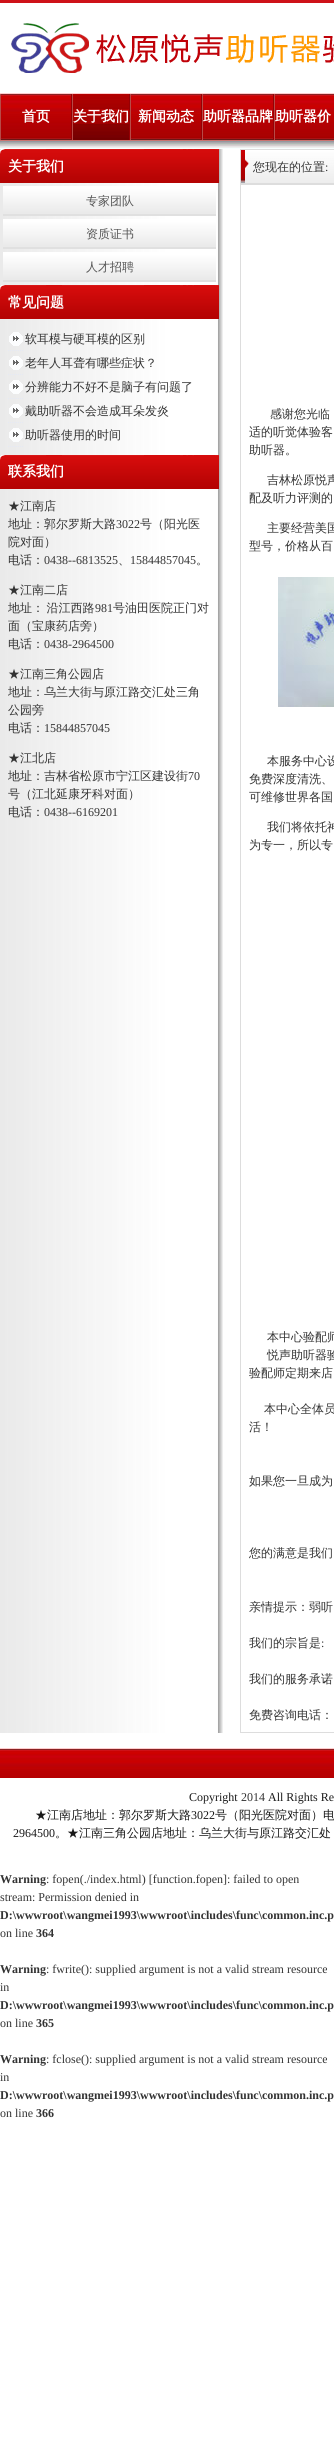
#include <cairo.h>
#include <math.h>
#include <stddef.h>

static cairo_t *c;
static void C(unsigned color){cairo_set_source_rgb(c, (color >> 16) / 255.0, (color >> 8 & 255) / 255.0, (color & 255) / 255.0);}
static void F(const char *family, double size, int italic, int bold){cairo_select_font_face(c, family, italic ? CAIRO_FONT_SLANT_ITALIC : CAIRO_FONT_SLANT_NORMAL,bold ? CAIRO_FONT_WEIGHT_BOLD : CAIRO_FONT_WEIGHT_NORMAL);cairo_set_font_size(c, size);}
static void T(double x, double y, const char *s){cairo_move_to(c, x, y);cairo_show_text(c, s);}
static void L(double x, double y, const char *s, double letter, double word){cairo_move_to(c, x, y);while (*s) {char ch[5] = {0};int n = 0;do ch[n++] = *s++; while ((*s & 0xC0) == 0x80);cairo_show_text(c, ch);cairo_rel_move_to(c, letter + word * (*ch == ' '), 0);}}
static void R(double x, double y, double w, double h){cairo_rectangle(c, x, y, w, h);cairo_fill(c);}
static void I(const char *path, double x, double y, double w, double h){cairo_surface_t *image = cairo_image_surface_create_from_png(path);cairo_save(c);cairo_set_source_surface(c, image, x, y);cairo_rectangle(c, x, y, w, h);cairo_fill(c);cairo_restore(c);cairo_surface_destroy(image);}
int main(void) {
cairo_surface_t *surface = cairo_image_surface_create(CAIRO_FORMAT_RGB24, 334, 2440);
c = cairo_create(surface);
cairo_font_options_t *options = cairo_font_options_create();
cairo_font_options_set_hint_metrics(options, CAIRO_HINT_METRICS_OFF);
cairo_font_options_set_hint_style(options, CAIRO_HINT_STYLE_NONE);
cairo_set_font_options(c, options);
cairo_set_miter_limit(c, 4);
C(0xffffff);
cairo_paint(c);
C(0xce1118);
R(0,0,334,3);
I("1.png",11,23,323,50);
I("2.png",0,93,334,56);
C(0x950004);
R(71,94,1,46);
C(0xb74a47);
R(0,94,1,46);
F("WenQuanYi Zen Hei",14,0,1);
C(0xffffff);
T(22,121,"首页");
C(0x950004);
R(129,94,1,46);
C(0xb74a47);
R(72,94,1,46);
I("3.png",73,94,56,46);
I("4.png",73,109,56,15);
C(0xffffff);
T(73,121,"关于我们");
C(0x950004);
R(201,94,1,46);
C(0xb74a47);
R(130,94,1,46);
C(0xffffff);
T(138,121,"新闻动态");
C(0x950004);
R(273,94,1,46);
C(0xb74a47);
R(202,94,1,46);
C(0xffffff);
T(203,121,"助听器品牌");
C(0xb74a47);
R(274,94,1,46);
C(0xffffff);
T(275,121,"助听器价");
I("5.png",0,149,223,1584);
I("6.png",0,149,219,34);
T(8,171,"关于我们");
I("7.png",3,186,213,30);
F("WenQuanYi Zen Hei Medium",12,0,0);
C(0x555555);
T(86,205,"专家团队");
I("7.png",3,219,213,30);
T(86,238,"资质证书");
I("7.png",3,252,213,30);
T(86,271,"人才招聘");
I("6.png",0,285,219,34);
F("WenQuanYi Zen Hei",14,0,1);
C(0xffffff);
T(8,307,"常见问题");
cairo_new_path(c);
cairo_move_to(c,8,350.5);
cairo_line_to(c,24,350.5);
cairo_move_to(c,8,374.5);
cairo_line_to(c,24,374.5);
cairo_move_to(c,8,398.5);
cairo_line_to(c,24,398.5);
C(0xe5e9f4);
cairo_set_line_width(c,1);
cairo_set_dash(c,(double[]){1,1},2,0);
cairo_stroke(c);
I("8.png",9,332,14,14);
F("WenQuanYi Zen Hei Medium",12,0,0);
C(0x333333);
T(25,343,"软耳模与硬耳模的区别");
I("8.png",9,356,14,14);
T(25,367,"老年人耳聋有哪些症状？");
I("8.png",9,380,14,14);
T(25,391,"分辨能力不好不是脑子有问题了");
cairo_new_path(c);
cairo_move_to(c,8,422.5);
cairo_line_to(c,24,422.5);
cairo_move_to(c,8,446.5);
cairo_line_to(c,24,446.5);
C(0xe5e9f4);
cairo_stroke(c);
I("8.png",9,404,14,14);
C(0x333333);
T(25,415,"戴助听器不会造成耳朵发炎");
I("8.png",9,428,14,14);
T(25,439,"助听器使用的时间");
I("6.png",0,455,219,34);
F("WenQuanYi Zen Hei",14,0,1);
C(0xffffff);
T(8,476,"联系我们");
F("WenQuanYi Zen Hei Medium",12,0,0);
C(0x333333);
T(8,510,"★江南店");
T(8,528,"地址：郭尔罗斯大路");
F("Liberation Serif",12,0,0);
T(116,528,"3022");
F("WenQuanYi Zen Hei Medium",12,0,0);
T(140,528,"号（阳光医");
T(8,546,"院对面）");
T(8,564,"电话：");
F("Liberation Serif",12,0,0);
T(44,564,"0438--6813525");
F("WenQuanYi Zen Hei Medium",12,0,0);
T(118,564,"、");
F("Liberation Serif",12,0,0);
T(130,564,"15844857045");
F("WenQuanYi Zen Hei Medium",12,0,0);
T(196,564,"。");
T(8,594,"★江南二店");
L(8,612,"地址： 沿江西路",0,-1);
F("Liberation Serif",12,0,0);
T(95,612,"981");
F("WenQuanYi Zen Hei Medium",12,0,0);
T(113,612,"号油田医院正门对");
T(8,630,"面（宝康药店旁）");
T(8,648,"电话：");
F("Liberation Serif",12,0,0);
T(44,648,"0438-2964500");
F("WenQuanYi Zen Hei Medium",12,0,0);
T(8,678,"★江南三角公园店");
T(8,696,"地址：乌兰大街与原江路交汇处三角");
T(8,714,"公园旁");
T(8,732,"电话：");
F("Liberation Serif",12,0,0);
T(44,732,"15844857045");
F("WenQuanYi Zen Hei Medium",12,0,0);
T(8,762,"★江北店");
T(8,780,"地址：吉林省松原市宁江区建设街");
F("Liberation Serif",12,0,0);
T(188,780,"70");
F("WenQuanYi Zen Hei Medium",12,0,0);
T(8,798,"号（江北延康牙科对面）");
T(8,816,"电话：");
F("Liberation Serif",12,0,0);
T(44,816,"0438--6169201");
I("9.png",245,150,89,33);
cairo_rectangle(c,240.5,149.5,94,34);
C(0xdddddd);
cairo_set_dash(c,NULL,0,0);
cairo_stroke(c);
I("10.png",241,150,8,33);
F("WenQuanYi Zen Hei Medium",12,0,0);
C(0x333333);
T(253,171,"您现在的位置");
F("Liberation Serif",12,0,0);
T(325,171,":");
cairo_rectangle(c,240.5,184.5,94,1548);
C(0xdddddd);
cairo_stroke(c);
F("WenQuanYi Zen Hei Medium",12,0,0);
C(0x333333);
T(270,418,"感谢您光临");
T(249,436,"适的听觉体验客");
T(249,454,"助听器。");
T(267,484,"吉林松原悦声");
T(249,502,"配及听力评测的");
T(267,532,"主要经营美国");
T(249,550,"型号，价格从百");
I("11.png",278,577,56,130);
T(267,765,"本服务中心设");
T(249,783,"免费深度清洗、");
T(249,801,"可维修世界各国");
T(267,831,"我们将依托神");
T(249,849,"为专一，所以专");
T(267,1341,"本中心验配师");
T(267,1359,"悦声助听器验");
T(249,1377,"验配师定期来店");
T(264,1413,"本中心全体员");
T(249,1431,"活！");
T(249,1485,"如果您一旦成为");
T(249,1557,"您的满意是我们");
T(249,1611,"亲情提示：弱听");
T(249,1647,"我们的宗旨是");
F("Liberation Serif",12,0,0);
T(321,1647,":");
F("WenQuanYi Zen Hei Medium",12,0,0);
T(249,1683,"我们的服务承诺");
T(249,1719,"免费咨询电话：");
I("12.png",0,1748,334,30);
F("Liberation Serif",12,0,0);
C(0x191919);
T(189,1801,"Copyright");
C(0x333333);
T(241,1801,"2014");
C(0x191919);
T(268,1801,"All Rights Re");
F("WenQuanYi Zen Hei Medium",12,0,0);
T(35,1819,"★江南店地址：郭尔罗斯大路");
F("Liberation Serif",12,0,0);
T(191,1819,"3022");
F("WenQuanYi Zen Hei Medium",12,0,0);
T(215,1819,"号（阳光医院对面）电");
F("Liberation Serif",12,0,0);
T(13,1837,"2964500");
F("WenQuanYi Zen Hei Medium",12,0,0);
T(55,1837,"。★江南三角公园店地址：乌兰大街与原江路交汇处");
F("Liberation Serif",12,0,1);
C(0x333333);
T(0,1883,"Warning");
F("Liberation Serif",12,0,0);
T(46,1883,": fopen(./index.html) [function.fopen]: failed to open");
T(0,1901,"stream: Permission denied in");
F("Liberation Serif",12,0,1);
T(0,1919,"D:\\wwwroot\\wangmei1993\\wwwroot\\includes\\func\\common.inc.p");
F("Liberation Serif",12,0,0);
T(0,1937,"on line");
F("Liberation Serif",12,0,1);
T(36,1937,"364");
T(0,1973,"Warning");
F("Liberation Serif",12,0,0);
T(46,1973,": fwrite(): supplied argument is not a valid stream resource");
T(0,1991,"in");
F("Liberation Serif",12,0,1);
T(0,2009,"D:\\wwwroot\\wangmei1993\\wwwroot\\includes\\func\\common.inc.p");
F("Liberation Serif",12,0,0);
T(0,2027,"on line");
F("Liberation Serif",12,0,1);
T(36,2027,"365");
T(0,2063,"Warning");
F("Liberation Serif",12,0,0);
T(46,2063,": fclose(): supplied argument is not a valid stream resource");
T(0,2081,"in");
F("Liberation Serif",12,0,1);
T(0,2099,"D:\\wwwroot\\wangmei1993\\wwwroot\\includes\\func\\common.inc.p");
F("Liberation Serif",12,0,0);
T(0,2117,"on line");
F("Liberation Serif",12,0,1);
T(36,2117,"366");
cairo_surface_write_to_png(surface, "o.png");
cairo_font_options_destroy(options);
cairo_destroy(c);
cairo_surface_destroy(surface);
return 0;
}
